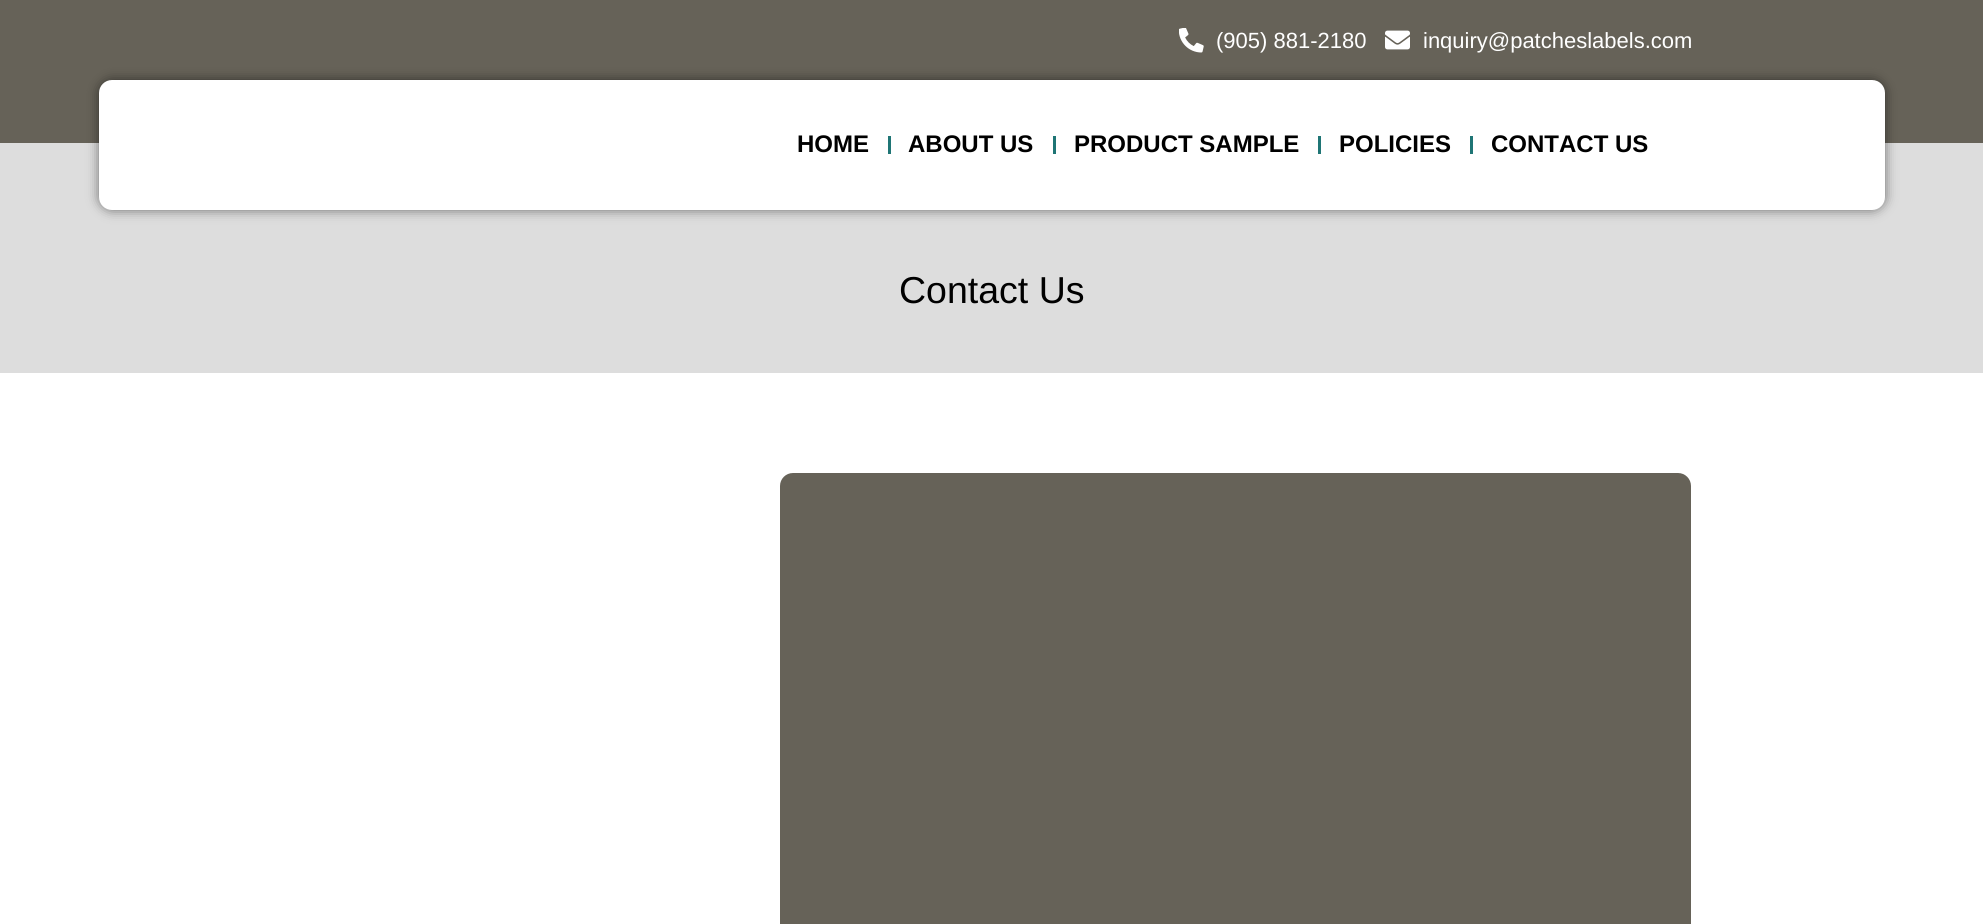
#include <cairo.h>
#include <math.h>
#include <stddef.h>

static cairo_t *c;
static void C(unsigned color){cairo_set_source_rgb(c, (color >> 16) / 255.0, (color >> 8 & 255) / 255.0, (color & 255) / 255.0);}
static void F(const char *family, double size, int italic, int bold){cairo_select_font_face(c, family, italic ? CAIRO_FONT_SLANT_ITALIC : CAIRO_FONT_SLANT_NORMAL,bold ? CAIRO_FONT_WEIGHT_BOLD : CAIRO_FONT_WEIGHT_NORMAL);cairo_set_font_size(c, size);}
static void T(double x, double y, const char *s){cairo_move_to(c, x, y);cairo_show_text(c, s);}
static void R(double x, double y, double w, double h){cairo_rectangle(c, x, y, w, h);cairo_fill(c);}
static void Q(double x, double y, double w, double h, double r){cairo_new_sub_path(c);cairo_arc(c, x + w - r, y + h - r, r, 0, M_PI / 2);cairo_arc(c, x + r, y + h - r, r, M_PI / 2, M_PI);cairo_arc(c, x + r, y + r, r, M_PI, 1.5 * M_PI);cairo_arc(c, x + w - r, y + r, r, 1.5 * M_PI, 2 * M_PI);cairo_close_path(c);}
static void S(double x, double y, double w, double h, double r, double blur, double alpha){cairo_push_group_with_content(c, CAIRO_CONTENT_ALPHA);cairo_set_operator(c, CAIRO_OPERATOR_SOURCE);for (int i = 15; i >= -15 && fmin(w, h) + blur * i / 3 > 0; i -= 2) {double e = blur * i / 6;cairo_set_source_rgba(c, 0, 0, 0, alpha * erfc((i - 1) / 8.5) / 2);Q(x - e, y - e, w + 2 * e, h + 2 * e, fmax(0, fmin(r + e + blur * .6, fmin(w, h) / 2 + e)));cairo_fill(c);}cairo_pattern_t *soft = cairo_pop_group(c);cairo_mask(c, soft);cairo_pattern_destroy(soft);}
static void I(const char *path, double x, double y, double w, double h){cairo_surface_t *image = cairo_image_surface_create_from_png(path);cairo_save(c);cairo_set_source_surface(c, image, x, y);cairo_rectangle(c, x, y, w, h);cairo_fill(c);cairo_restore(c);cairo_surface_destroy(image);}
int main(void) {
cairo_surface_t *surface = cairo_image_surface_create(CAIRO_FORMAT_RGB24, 1983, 924);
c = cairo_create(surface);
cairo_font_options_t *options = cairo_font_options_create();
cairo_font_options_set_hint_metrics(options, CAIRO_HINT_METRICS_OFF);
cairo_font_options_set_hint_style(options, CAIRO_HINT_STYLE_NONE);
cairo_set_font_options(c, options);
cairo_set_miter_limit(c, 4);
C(0xffffff);
cairo_paint(c);
C(0x666258);
R(0,0,1983,143);
I("1.png",1179,28,25,25);
F("Liberation Sans",22,0,0);
C(0xffffff);
T(1216,48,"(905) 881-2180");
I("2.png",1385,30,25,20);
T(1423,48,"inquiry@patcheslabels.com");
C(0xdddddd);
R(0,143,1983,230);
C(0x000000);
S(99,80,1786,130,13,6,.5);
C(0xffffff);
Q(99,80,1786,130,13);
cairo_fill(c);
F("Liberation Sans",24,0,1);
C(0x000000);
T(797,152,"HOME");
C(0x1f7575);
R(888,136,3,18);
C(0x000000);
T(908,152,"ABOUT US");
C(0x1f7575);
R(1053,136,3,18);
C(0x000000);
T(1074,152,"PRODUCT SAMPLE");
C(0x1f7575);
R(1318,136,3,18);
C(0x000000);
T(1339,152,"POLICIES");
C(0x1f7575);
R(1470,136,3,18);
C(0x000000);
T(1491,152,"CONTACT US");
F("Liberation Sans",37.5,0,0);
T(899,303,"Contact Us");
C(0x666258);
Q(780,473,911,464,13);
cairo_fill(c);
cairo_surface_write_to_png(surface, "o.png");
cairo_font_options_destroy(options);
cairo_destroy(c);
cairo_surface_destroy(surface);
return 0;
}
